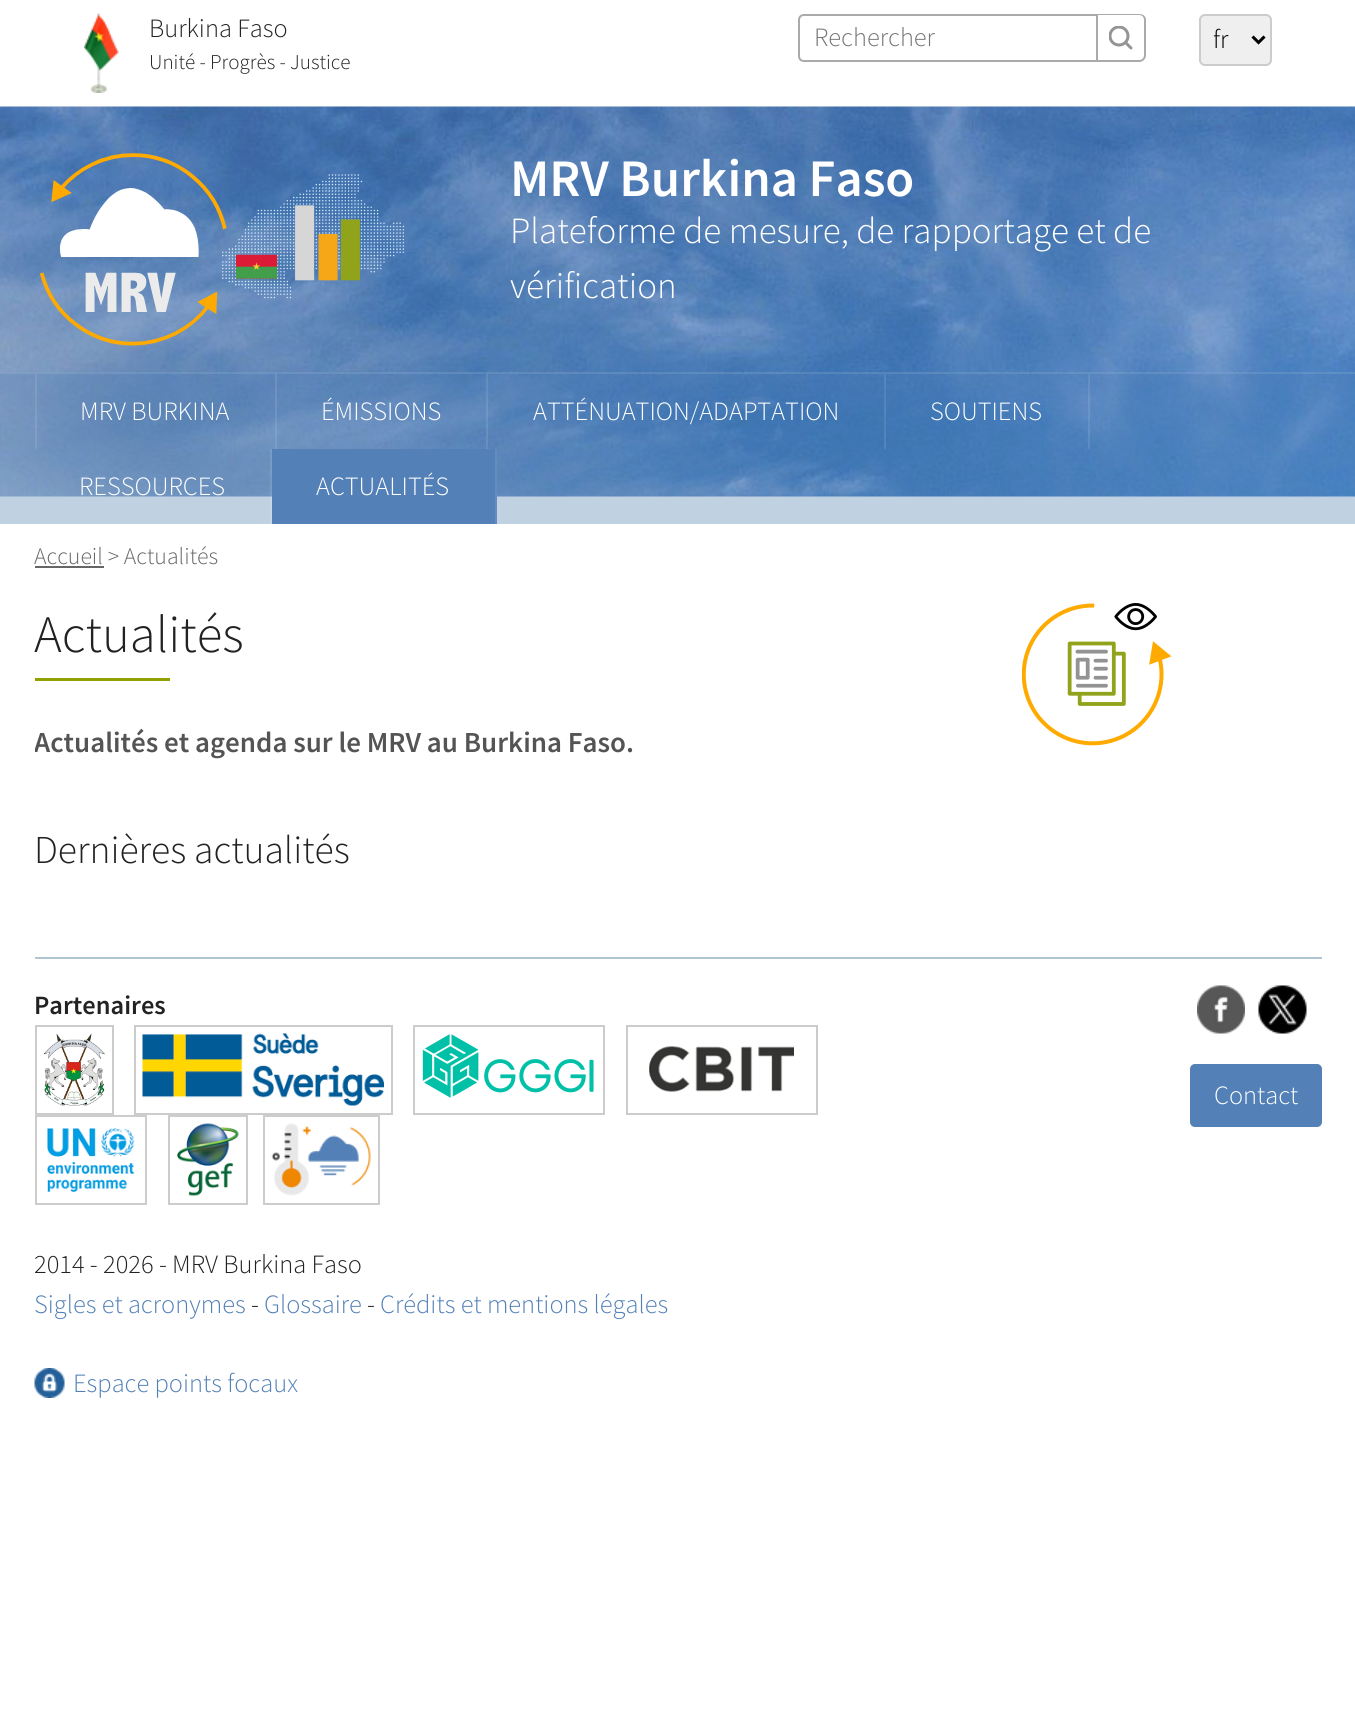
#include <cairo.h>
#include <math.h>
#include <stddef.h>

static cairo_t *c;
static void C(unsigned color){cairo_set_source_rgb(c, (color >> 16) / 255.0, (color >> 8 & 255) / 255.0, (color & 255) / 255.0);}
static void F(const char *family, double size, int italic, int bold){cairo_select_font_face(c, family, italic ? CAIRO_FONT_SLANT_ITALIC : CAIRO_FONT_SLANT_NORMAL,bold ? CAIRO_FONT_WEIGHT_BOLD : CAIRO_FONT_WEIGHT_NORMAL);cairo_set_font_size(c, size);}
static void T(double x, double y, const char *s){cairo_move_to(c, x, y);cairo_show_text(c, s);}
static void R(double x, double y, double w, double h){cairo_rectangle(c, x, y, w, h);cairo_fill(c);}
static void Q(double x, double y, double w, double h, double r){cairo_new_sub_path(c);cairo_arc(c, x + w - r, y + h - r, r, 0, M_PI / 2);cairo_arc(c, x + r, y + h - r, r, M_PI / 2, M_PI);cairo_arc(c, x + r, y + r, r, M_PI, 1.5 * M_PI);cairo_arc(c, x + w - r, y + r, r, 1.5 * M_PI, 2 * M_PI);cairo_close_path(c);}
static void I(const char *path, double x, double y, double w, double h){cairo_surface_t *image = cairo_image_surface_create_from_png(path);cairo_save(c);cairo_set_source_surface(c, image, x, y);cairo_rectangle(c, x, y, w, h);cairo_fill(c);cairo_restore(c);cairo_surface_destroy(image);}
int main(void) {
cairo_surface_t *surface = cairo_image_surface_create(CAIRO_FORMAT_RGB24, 1355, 1716);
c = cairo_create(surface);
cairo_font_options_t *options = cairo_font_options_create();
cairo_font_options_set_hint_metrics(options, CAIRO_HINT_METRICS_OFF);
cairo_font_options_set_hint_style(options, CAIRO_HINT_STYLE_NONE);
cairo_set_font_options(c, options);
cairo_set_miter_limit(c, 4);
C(0xffffff);
cairo_paint(c);
I("1.png",84,13,35,80);
F("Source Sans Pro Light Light",26.4,0,0);
C(0x222222);
T(149,37,"Burkina Faso");
F("Source Sans Pro Light Light",21.1,0,0);
T(149,69,"Unité - Progrès - Justice");
cairo_new_path(c);
cairo_move_to(c,804,15);
cairo_line_to(c,1097,15);
cairo_line_to(c,1097,61);
cairo_line_to(c,804,61);
cairo_curve_to(c,801,61,799,59,799,56);
cairo_line_to(c,799,20);
cairo_curve_to(c,799,17,801,15,804,15);
cairo_close_path(c);
C(0xaaaaaa);
cairo_stroke(c);
F("Source Sans Pro Light Light",26.4,0,0);
C(0x757575);
T(814,46,"Rechercher");
I("2.png",1109,26,24,24);
C(0xaaaaaa);
cairo_set_fill_rule(c,CAIRO_FILL_RULE_EVEN_ODD);
cairo_new_path(c);
cairo_move_to(c,1098,14);
cairo_line_to(c,1139,14);
cairo_curve_to(c,1143,14,1146,16,1146,20);
cairo_line_to(c,1146,55);
cairo_curve_to(c,1146,59,1143,62,1139,62);
cairo_line_to(c,1098,62);
cairo_close_path(c);
cairo_move_to(c,1098,15);
cairo_line_to(c,1139,15);
cairo_curve_to(c,1142,15,1144,17,1144,20);
cairo_line_to(c,1144,55);
cairo_curve_to(c,1144,58,1142,60,1139,60);
cairo_line_to(c,1098,60);
cairo_close_path(c);
cairo_fill(c);
C(0xefefef);
Q(1200,15,71,50,5);
cairo_fill_preserve(c);
C(0xcccccc);
cairo_stroke(c);
cairo_new_path(c);
cairo_move_to(c,1252.5,36.5);
cairo_line_to(c,1258.5,42.5);
cairo_line_to(c,1264.5,36.5);
C(0x000000);
cairo_set_line_width(c,3);
cairo_stroke(c);
T(1213,48,"fr");
C(0xf0f3f4);
R(0,496,1355,28);
I("3.png",0,106,1355,391);
I("4.png",39,153,366,193);
F("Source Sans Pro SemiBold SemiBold",52.75,0,0);
C(0xffffff);
T(510,196,"MRV Burkina Faso");
F("Source Sans Pro Light Light",37,0,0);
T(510,243,"Plateforme de mesure, de rapportage et de");
T(510,298,"vérification");
cairo_set_source_rgba(c,0.325,0.502,0.718,0.3);
R(0,372,1355,152);
cairo_set_source_rgba(c,1,1,1,0.1);
R(0,372,1355,2);
R(275,374,2,75);
R(35,374,2,75);
F("Source Sans Pro Light Light",26.4,0,0);
C(0xffffff);
T(80,420,"MRV BURKINA");
cairo_set_source_rgba(c,1,1,1,0.1);
R(486,374,2,75);
C(0xffffff);
T(321,420,"ÉMISSIONS");
cairo_set_source_rgba(c,1,1,1,0.1);
R(884,374,2,75);
C(0xffffff);
T(533,420,"ATTÉNUATION/ADAPTATION");
cairo_set_source_rgba(c,1,1,1,0.1);
R(1088,374,2,75);
C(0xffffff);
T(930,420,"SOUTIENS");
cairo_set_source_rgba(c,1,1,1,0.1);
R(270,449,2,75);
C(0xffffff);
T(79,495,"RESSOURCES");
C(0x5380b7);
R(272,449,223,75);
C(0x648dbe);
R(495,449,2,75);
C(0xffffff);
T(316,495,"ACTUALITÉS");
F("Source Sans Pro Light Light",23.75,0,0);
C(0x666666);
T(34,564,"Accueil > Actualités");
R(35,566,69,2);
F("Source Sans Pro Light Light",52.75,0,0);
C(0x222222);
T(34,652,"Actualités");
C(0x91a200);
R(35,678,135,3);
cairo_save(c);
cairo_set_fill_rule(c,CAIRO_FILL_RULE_WINDING);
cairo_rectangle(c,35,603,901,222);
cairo_clip(c);
F("Source Sans Pro SemiBold SemiBold",29,0,0);
C(0x545454);
T(34,752,"Actualités et agenda sur le MRV au Burkina Faso.");
cairo_restore(c);
I("5.png",1022,603,150,143);
F("Source Sans Pro Light Light",39.5,0,0);
C(0x222222);
T(34,863,"Dernières actualités");
C(0xb1c4d2);
R(35,957,1287,2);
F("Source Sans Pro SemiBold SemiBold",26.4,0,0);
C(0x222222);
T(34,1014,"Partenaires");
cairo_rectangle(c,36,1026,77,88);
C(0xcccccc);
cairo_set_line_width(c,2);
cairo_stroke(c);
cairo_rectangle(c,135,1026,257,88);
cairo_stroke(c);
cairo_rectangle(c,414,1026,190,88);
cairo_stroke(c);
cairo_rectangle(c,627,1026,190,88);
cairo_stroke(c);
I("6.png",43,1033,62,73);
I("7.png",142,1033,242,73);
I("8.png",422,1034,172,64);
I("9.png",649,1046,145,46);
cairo_rectangle(c,36,1116,110,88);
cairo_stroke(c);
cairo_rectangle(c,169,1116,78,88);
cairo_stroke(c);
cairo_rectangle(c,264,1116,115,88);
cairo_stroke(c);
I("10.png",47,1128,88,64);
I("11.png",177,1123,62,73);
I("12.png",271,1123,100,73);
F("Source Sans Pro Light Light",26.4,0,0);
C(0x222222);
T(34,1273,"2014 - 2026 - MRV Burkina Faso");
C(0x5380b7);
T(34,1313,"Sigles et acronymes");
C(0x222222);
T(251,1313,"-");
C(0x5380b7);
T(264,1313,"Glossaire");
C(0x222222);
T(367,1313,"-");
C(0x5380b7);
T(380,1313,"Crédits et mentions légales");
I("13.png",34,1368,31,30);
T(73,1392,"Espace points focaux");
I("14.png",1197,985,48,49);
I("15.png",1258,985,49,49);
Q(1190,1064,132,63,5);
cairo_fill(c);
C(0xffffff);
T(1214,1104,"Contact");
cairo_surface_write_to_png(surface, "o.png");
cairo_font_options_destroy(options);
cairo_destroy(c);
cairo_surface_destroy(surface);
return 0;
}
